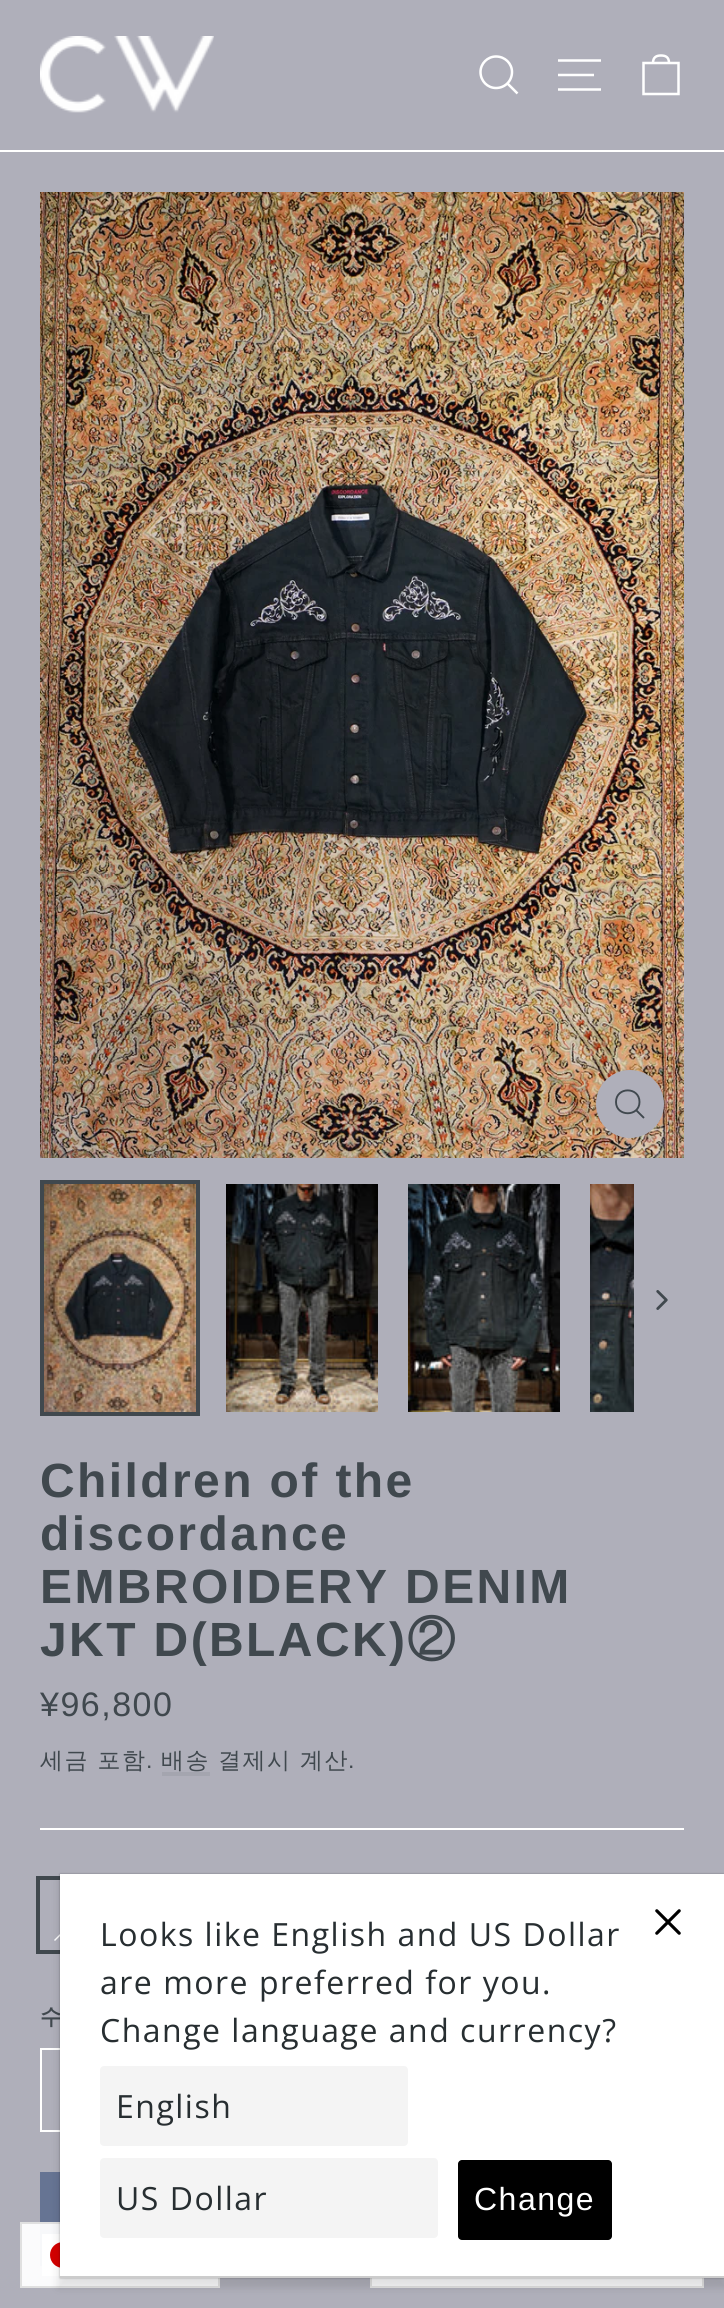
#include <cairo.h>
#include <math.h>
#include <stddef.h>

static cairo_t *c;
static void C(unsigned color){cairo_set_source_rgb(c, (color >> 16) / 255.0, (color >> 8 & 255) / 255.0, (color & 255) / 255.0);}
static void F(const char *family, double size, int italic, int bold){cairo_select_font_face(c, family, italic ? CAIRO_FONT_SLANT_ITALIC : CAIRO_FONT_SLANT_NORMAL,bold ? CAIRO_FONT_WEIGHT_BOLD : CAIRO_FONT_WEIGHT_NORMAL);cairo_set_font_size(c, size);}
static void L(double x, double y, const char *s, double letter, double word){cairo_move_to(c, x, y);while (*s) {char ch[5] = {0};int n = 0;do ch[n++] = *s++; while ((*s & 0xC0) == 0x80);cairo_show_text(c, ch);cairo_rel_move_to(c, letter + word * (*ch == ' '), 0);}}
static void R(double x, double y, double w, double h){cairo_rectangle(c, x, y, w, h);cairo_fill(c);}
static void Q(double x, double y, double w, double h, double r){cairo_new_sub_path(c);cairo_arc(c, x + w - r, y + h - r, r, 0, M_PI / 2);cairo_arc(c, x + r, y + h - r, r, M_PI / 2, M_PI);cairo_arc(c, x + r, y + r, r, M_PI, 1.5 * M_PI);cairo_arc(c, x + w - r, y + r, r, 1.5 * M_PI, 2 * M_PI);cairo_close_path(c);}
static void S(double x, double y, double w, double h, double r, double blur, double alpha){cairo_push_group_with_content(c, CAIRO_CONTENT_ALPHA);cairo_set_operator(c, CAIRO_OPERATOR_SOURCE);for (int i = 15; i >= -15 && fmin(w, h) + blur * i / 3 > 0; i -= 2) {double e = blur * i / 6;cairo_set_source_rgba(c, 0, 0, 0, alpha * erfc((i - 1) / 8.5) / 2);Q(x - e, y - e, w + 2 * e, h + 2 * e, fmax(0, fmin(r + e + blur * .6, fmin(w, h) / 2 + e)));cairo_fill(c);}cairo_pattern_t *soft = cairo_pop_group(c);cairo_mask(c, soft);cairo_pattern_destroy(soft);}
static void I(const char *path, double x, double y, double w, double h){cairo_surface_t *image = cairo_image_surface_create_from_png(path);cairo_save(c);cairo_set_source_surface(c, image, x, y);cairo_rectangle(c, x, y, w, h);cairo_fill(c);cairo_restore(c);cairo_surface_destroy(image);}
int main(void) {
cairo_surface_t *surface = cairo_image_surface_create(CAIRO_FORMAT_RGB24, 724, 2308);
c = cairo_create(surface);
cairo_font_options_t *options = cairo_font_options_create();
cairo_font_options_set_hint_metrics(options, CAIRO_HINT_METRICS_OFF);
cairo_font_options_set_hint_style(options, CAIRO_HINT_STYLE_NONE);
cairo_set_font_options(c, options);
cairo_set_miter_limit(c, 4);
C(0xafafba);
cairo_paint(c);
C(0xfbfbfc);
R(22,2224,196,62);
C(0xffffff);
R(0,150,724,2);
I("1.png",40,36,174,77);
cairo_new_path(c);
cairo_move_to(c,512,72);
cairo_curve_to(c,512,81,505,88,496,88);
cairo_curve_to(c,487.5,88,480.5,81,480.5,72);
cairo_curve_to(c,480.5,63.5,487.5,56.5,496,56.5);
cairo_curve_to(c,505,56.5,512,63.5,512,72);
cairo_close_path(c);
cairo_move_to(c,517.5,93.5);
cairo_line_to(c,507.5,83.5);
cairo_set_line_width(c,2.5);
cairo_stroke(c);
cairo_new_path(c);
cairo_move_to(c,558,60.5);
cairo_line_to(c,601,60.5);
cairo_move_to(c,558,75);
cairo_line_to(c,594,75);
cairo_move_to(c,558,89.5);
cairo_line_to(c,601,89.5);
cairo_stroke(c);
cairo_new_path(c);
cairo_move_to(c,643.5,63);
cairo_line_to(c,678.5,63);
cairo_line_to(c,678.5,94);
cairo_line_to(c,643.5,94);
cairo_close_path(c);
cairo_move_to(c,653,63);
cairo_curve_to(c,653,57,656.5,55.5,661,55.5);
cairo_curve_to(c,665.5,55.5,669,57,669,63);
cairo_stroke(c);
I("2.png",40,192,644,966);
C(0xafafba);
cairo_arc(c,630,1104,34,0,2 * M_PI);
cairo_fill(c);
cairo_new_path(c);
cairo_move_to(c,639.5,1102);
cairo_curve_to(c,639.5,1117,616,1117,616,1102);
cairo_curve_to(c,616,1086.5,639.5,1086.5,639.5,1102);
cairo_close_path(c);
cairo_move_to(c,644,1118);
cairo_line_to(c,636,1110);
C(0x40484e);
cairo_set_line_width(c,1.9);
cairo_stroke(c);
cairo_rectangle(c,42,1182,156,232);
cairo_set_line_width(c,4);
cairo_stroke(c);
I("3.png",44,1184,152,228);
I("4.png",226,1184,152,228);
I("5.png",408,1184,152,228);
I("6.png",590,1184,44,228);
I("7.png",656,1290,12,20);
F("Liberation Sans",48,0,1);
L(40,1497,"Children of the",2.4,0);
L(40,1550,"discordance",2.4,0);
L(40,1603,"EMBROIDERY DENIM",2.4,0);
L(40,1656,"JKT D(BLACK)",2.4,0);
F("WenQuanYi Zen Hei",48,0,1);
L(407,1656,"②",2.4,0);
F("Liberation Sans",34,0,0);
L(40,1716,"¥96,800",1.5,0);
F("WenQuanYi Zen Hei Medium",23,0,0);
L(40,1768,"세금 포함",1.5,0);
F("Liberation Sans",23,0,0);
L(146,1768,".",1.5,0);
F("WenQuanYi Zen Hei Medium",23,0,0);
L(161,1768,"배송",1.5,0);
C(0xa4a5af);
R(162,1772,48,4);
C(0x40484e);
L(218,1768,"결제시 계산",1.5,0);
F("Liberation Sans",23,0,0);
L(348,1768,".",1.5,0);
C(0xffffff);
R(40,1828,644,2);
cairo_rectangle(c,38,1878,82,74);
C(0x40484e);
cairo_stroke(c);
C(0xffffff);
cairo_new_path(c);
cairo_move_to(c,104,1890);
cairo_line_to(c,105,1891);
cairo_line_to(c,55,1941);
cairo_line_to(c,54,1940);
cairo_close_path(c);
cairo_fill(c);
F("WenQuanYi Zen Hei",22,0,1);
C(0x40484e);
L(40,2024,"수",4,0);
cairo_rectangle(c,41,2049,198,82);
C(0xffffff);
cairo_set_line_width(c,2);
cairo_stroke(c);
C(0x667493);
R(40,2172,20,50);
C(0xf7f8fa);
R(40,2224,20,42);
cairo_rectangle(c,21,2223,198,64);
C(0xe0e0e0);
cairo_stroke(c);
C(0xffffff);
R(42,2234,18,42);
C(0xd30000);
cairo_arc(c,63,2255,13,0,2 * M_PI);
cairo_fill(c);
cairo_set_source_rgba(c,1,1,1,0.95);
R(372,2278,330,8);
cairo_rectangle(c,371,2223,332,64);
C(0xe0e0e0);
cairo_stroke(c);
C(0x000000);
S(58,1880,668,408,0,4,.1);
S(60,1874,664,404,0,1,.3);
C(0xffffff);
R(60,1874,664,402);
C(0xcccccc);
R(60,2276,664,2);
F("Open Sans",32,0,0);
C(0x272e31);
L(100,1946,"Looks like English and US Dollar",1.5,0);
L(100,1994,"are more preferred for you.",1.5,0);
L(100,2042,"Change language and currency?",1.5,0);
C(0xf4f4f4);
Q(100,2066,308,80,4);
cairo_fill(c);
C(0x272e31);
L(116,2118,"English",1.5,0);
C(0xf4f4f4);
Q(100,2158,338,80,4);
cairo_fill(c);
C(0x272e31);
L(116,2210,"US Dollar",1.5,0);
C(0x000000);
Q(458,2160,154,80,4);
cairo_fill(c);
F("Liberation Sans",32,0,0);
C(0xffffff);
L(474,2210,"Change",1.5,0);
I("8.png",655,1909,26,26);
cairo_surface_write_to_png(surface, "o.png");
cairo_font_options_destroy(options);
cairo_destroy(c);
cairo_surface_destroy(surface);
return 0;
}
